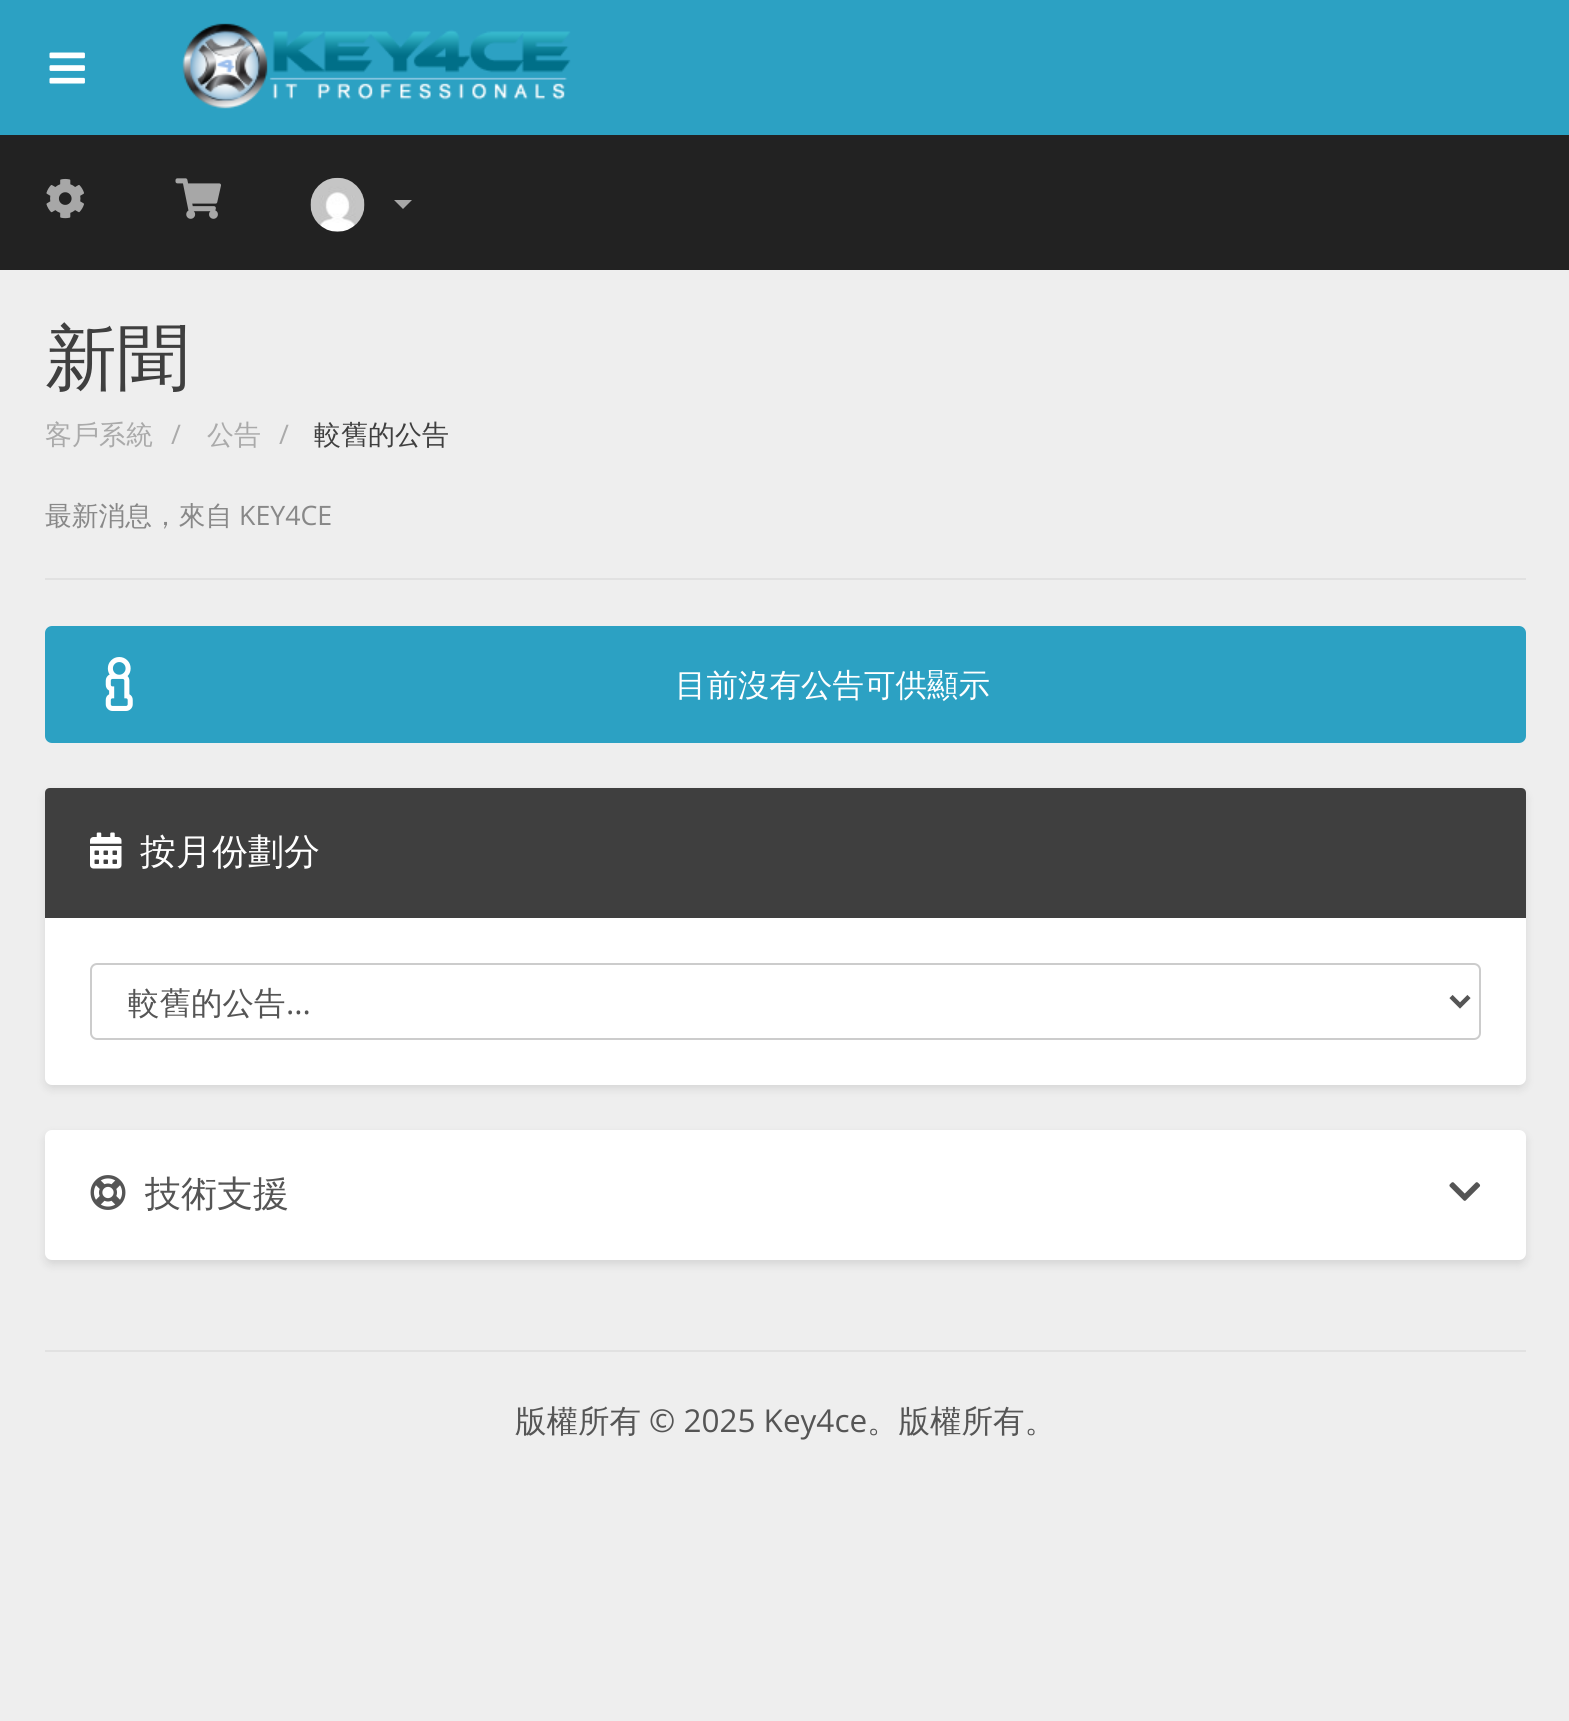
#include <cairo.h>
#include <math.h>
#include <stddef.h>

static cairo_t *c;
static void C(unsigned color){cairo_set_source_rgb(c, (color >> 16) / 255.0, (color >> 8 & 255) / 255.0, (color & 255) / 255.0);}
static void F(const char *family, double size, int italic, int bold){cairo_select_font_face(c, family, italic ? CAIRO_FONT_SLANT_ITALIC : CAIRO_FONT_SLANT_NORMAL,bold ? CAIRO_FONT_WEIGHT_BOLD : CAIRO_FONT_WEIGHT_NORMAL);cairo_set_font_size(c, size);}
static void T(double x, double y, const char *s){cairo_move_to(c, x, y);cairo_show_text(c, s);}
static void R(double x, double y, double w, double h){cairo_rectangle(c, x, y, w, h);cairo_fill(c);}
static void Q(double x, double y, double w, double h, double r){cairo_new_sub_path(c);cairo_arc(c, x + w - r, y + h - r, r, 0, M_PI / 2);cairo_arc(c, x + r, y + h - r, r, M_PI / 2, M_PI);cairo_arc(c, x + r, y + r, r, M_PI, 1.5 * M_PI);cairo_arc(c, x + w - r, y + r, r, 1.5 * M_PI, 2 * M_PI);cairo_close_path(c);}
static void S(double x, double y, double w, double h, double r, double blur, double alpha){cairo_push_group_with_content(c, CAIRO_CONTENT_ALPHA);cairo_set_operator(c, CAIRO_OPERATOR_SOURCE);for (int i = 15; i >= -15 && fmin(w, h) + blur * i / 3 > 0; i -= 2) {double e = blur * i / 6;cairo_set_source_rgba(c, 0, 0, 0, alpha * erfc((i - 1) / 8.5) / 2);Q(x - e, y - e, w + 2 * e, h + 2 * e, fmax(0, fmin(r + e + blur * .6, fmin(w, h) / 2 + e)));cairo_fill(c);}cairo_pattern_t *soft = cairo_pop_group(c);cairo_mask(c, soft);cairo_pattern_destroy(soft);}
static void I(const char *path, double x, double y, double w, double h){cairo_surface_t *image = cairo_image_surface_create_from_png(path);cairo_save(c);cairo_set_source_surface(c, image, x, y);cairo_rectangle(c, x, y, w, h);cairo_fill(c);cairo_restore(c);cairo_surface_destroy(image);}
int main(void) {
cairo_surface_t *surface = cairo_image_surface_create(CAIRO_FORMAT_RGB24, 1569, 1721);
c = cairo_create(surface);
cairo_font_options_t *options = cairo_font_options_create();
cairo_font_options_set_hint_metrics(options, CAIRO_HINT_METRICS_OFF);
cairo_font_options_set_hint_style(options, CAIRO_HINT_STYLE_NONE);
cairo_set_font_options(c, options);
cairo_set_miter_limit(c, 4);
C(0xeeeeee);
cairo_paint(c);
C(0x222222);
R(0,135,1569,135);
C(0x2ca1c3);
R(0,0,1569,135);
I("1.png",49,52,36,32);
I("2.png",182,23,389,86);
I("3.png",46,178,38,41);
I("4.png",175,178,46,41);
I("5.png",310,177,55,55);
C(0xa7a7a7);
cairo_new_path(c);
cairo_move_to(c,394,200);
cairo_line_to(c,412,200);
cairo_line_to(c,403,209);
cairo_close_path(c);
cairo_fill(c);
C(0xe1e1e1);
R(45,578,1481,2);
F("WenQuanYi Zen Hei Medium",72,0,0);
C(0x3f3f3f);
T(45,383,"新聞");
F("WenQuanYi Zen Hei Medium",27,0,0);
C(0xaaaaaa);
T(45,444,"客戶系統");
F("Open Sans",27,0,0);
T(171,444,"/");
F("WenQuanYi Zen Hei Medium",27,0,0);
T(207,444,"公告");
F("Open Sans",27,0,0);
T(279,444,"/");
F("WenQuanYi Zen Hei Medium",27,0,0);
C(0x3f3f3f);
T(314,444,"較舊的公告");
F("WenQuanYi Zen Hei Medium",26.75,0,0);
C(0x888888);
T(45,525,"最新消息，來自");
F("Open Sans",26.75,0,0);
T(239,525,"KEY4CE");
C(0x2ca1c3);
Q(46,627,1479,115,6);
cairo_fill_preserve(c);
cairo_stroke(c);
I("6.png",105,657,28,54);
F("WenQuanYi Zen Hei Medium",31.5,0,0);
C(0xffffff);
T(675,696,"目前沒有公告可供顯示");
C(0x000000);
S(45,792,1481,297,7,4.5,.1);
C(0xffffff);
Q(45,788,1481,297,7);
cairo_fill(c);
C(0x3f3f3f);
cairo_new_path(c);
cairo_move_to(c,50,788);
cairo_line_to(c,1521,788);
cairo_curve_to(c,1524,788,1526,790,1526,793);
cairo_line_to(c,1526,918);
cairo_line_to(c,45,918);
cairo_line_to(c,45,793);
cairo_curve_to(c,45,790,47,788,50,788);
cairo_close_path(c);
cairo_fill(c);
I("7.png",90,832,32,37);
F("WenQuanYi Zen Hei Medium",36,0,0);
C(0xffffff);
T(140,864,"按月份劃分");
Q(91,964,1389,75,6);
C(0xcccccc);
cairo_stroke(c);
cairo_new_path(c);
cairo_move_to(c,1451,996.5);
cairo_line_to(c,1460,1005.5);
cairo_line_to(c,1469,996.5);
C(0x555555);
cairo_set_line_width(c,4.5);
cairo_stroke(c);
F("WenQuanYi Zen Hei Medium",31.5,0,0);
T(128,1014,"較舊的公告");
F("Open Sans",31.5,0,0);
T(286,1014,"...");
C(0x000000);
S(45,1134,1481,131,7,4.5,.1);
C(0xffffff);
Q(45,1130,1481,130,7);
cairo_fill(c);
I("8.png",90,1175,36,35);
F("WenQuanYi Zen Hei Medium",36,0,0);
C(0x555555);
T(145,1206,"技術支援");
I("9.png",1449,1182,32,19);
C(0xe1e1e1);
R(45,1350,1481,2);
F("WenQuanYi Zen Hei Medium",31.5,0,0);
C(0x555555);
T(515,1432,"版權所有");
F("Open Sans",31.5,0,0);
T(649,1432,"© 2025 Key4ce");
F("WenQuanYi Zen Hei Medium",31.5,0,0);
T(867,1432,"。版權所有。");
cairo_surface_write_to_png(surface, "o.png");
cairo_font_options_destroy(options);
cairo_destroy(c);
cairo_surface_destroy(surface);
return 0;
}
